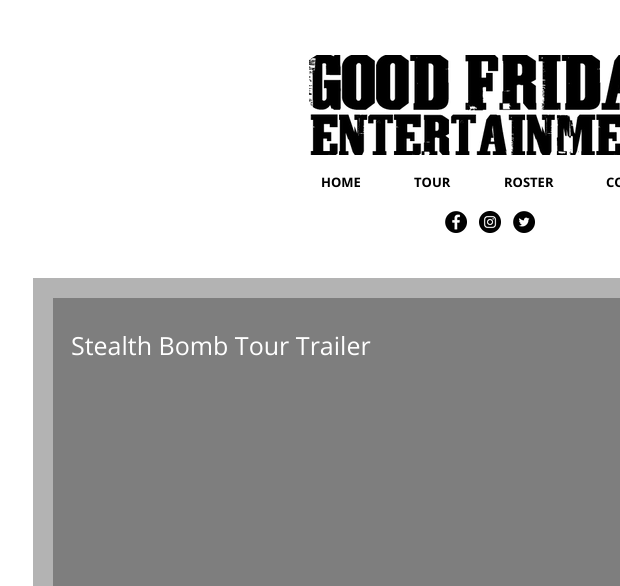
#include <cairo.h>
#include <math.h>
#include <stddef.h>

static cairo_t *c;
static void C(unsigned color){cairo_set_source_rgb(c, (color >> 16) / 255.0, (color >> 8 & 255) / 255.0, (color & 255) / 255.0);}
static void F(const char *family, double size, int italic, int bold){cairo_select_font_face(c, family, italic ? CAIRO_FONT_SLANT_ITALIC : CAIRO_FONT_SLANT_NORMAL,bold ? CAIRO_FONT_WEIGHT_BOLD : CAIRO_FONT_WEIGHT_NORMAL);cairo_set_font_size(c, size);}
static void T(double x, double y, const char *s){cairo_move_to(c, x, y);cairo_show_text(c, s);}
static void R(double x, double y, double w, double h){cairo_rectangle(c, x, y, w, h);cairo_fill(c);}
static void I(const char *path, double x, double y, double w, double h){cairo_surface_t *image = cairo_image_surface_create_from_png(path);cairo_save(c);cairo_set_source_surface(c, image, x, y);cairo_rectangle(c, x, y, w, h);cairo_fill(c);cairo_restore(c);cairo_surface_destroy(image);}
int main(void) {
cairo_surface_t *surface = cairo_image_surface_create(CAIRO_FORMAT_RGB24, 620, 586);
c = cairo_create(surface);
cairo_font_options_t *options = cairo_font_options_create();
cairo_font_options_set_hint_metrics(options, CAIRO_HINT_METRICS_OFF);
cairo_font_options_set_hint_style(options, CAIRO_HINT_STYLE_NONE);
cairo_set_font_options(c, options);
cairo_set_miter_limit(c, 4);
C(0xffffff);
cairo_paint(c);
I("1.png",309,55,311,100);
F("Open Sans",13,0,1);
C(0x000000);
T(321,187,"HOME");
T(414,187,"TOUR");
T(504,187,"ROSTER");
T(606,187,"CO");
I("2.png",445,211,22,22);
I("3.png",479,211,22,22);
I("4.png",513,211,22,22);
C(0xb3b3b3);
R(33,278,587,308);
C(0x7e7e7e);
R(53,298,567,288);
F("Open Sans",25,0,0);
C(0xffffff);
T(71,355,"Stealth Bomb Tour Trailer");
cairo_surface_write_to_png(surface, "o.png");
cairo_font_options_destroy(options);
cairo_destroy(c);
cairo_surface_destroy(surface);
return 0;
}
